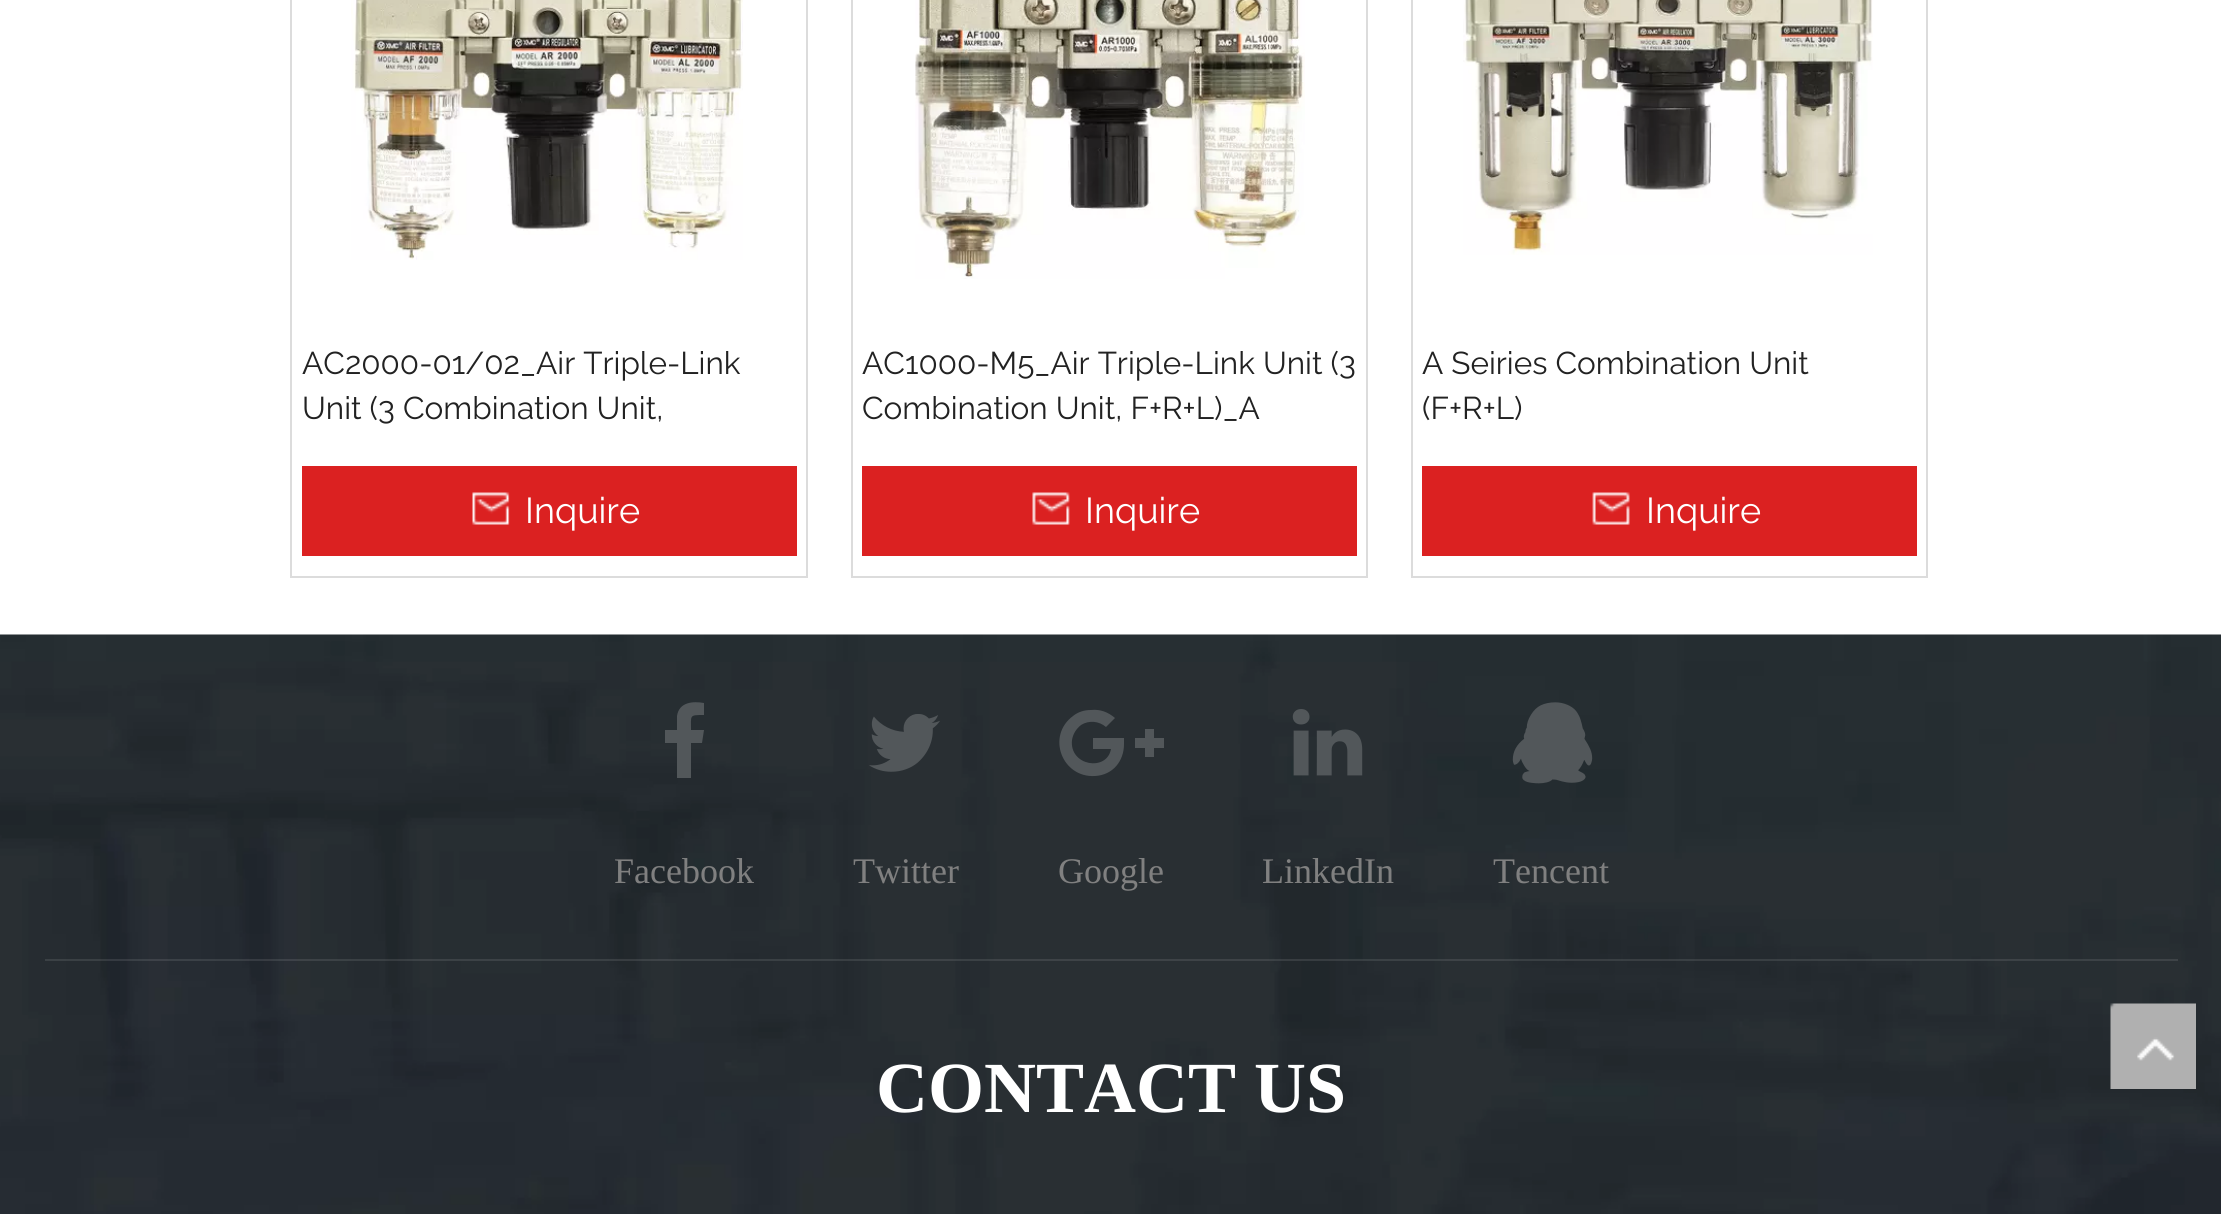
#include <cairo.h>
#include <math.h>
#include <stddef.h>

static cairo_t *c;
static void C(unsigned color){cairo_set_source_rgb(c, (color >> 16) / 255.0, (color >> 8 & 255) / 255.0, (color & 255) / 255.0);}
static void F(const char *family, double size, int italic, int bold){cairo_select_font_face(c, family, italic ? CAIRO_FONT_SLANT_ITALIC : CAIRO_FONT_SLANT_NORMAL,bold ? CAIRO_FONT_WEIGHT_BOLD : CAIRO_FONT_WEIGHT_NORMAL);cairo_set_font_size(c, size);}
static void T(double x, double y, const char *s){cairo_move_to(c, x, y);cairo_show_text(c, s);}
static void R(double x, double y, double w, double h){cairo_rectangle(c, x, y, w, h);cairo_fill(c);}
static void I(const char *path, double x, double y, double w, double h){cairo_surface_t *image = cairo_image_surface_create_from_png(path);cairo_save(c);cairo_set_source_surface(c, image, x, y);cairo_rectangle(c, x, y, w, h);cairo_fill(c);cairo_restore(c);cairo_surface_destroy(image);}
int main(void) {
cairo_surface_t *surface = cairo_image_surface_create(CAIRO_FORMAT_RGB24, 2221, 1214);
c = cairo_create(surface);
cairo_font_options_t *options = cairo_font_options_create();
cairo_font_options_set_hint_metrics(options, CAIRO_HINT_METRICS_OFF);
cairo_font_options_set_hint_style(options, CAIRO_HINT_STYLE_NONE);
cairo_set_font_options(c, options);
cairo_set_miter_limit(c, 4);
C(0xffffff);
cairo_paint(c);
cairo_rectangle(c,291,-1,516,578);
C(0xdcdcdc);
cairo_stroke(c);
I("1.png",351,0,392,260);
F("Raleway Thin",31.5,0,0);
C(0x222222);
T(302,374,"AC2000-01/02_Air Triple-Link");
T(302,419,"Unit (3 Combination Unit,");
C(0xdb2121);
R(302,466,495,90);
I("2.png",472,492,38,33);
F("Raleway Thin",36,0,0);
C(0xffffff);
T(525,523,"Inquire");
cairo_rectangle(c,852,-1,515,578);
C(0xdcdcdc);
cairo_stroke(c);
I("3.png",915,0,390,279);
F("Raleway Thin",31.5,0,0);
C(0x222222);
T(862,374,"AC1000-M5_Air Triple-Link Unit (3");
T(862,419,"Combination Unit, F+R+L)_A");
C(0xdb2121);
R(862,466,495,90);
I("4.png",1032,492,38,33);
F("Raleway Thin",36,0,0);
C(0xffffff);
T(1085,523,"Inquire");
cairo_rectangle(c,1412,-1,515,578);
C(0xdcdcdc);
cairo_stroke(c);
I("5.png",1463,0,410,255);
F("Raleway Thin",31.5,0,0);
C(0x222222);
T(1422,374,"A Seiries Combination Unit");
T(1422,419,"(F+R+L)");
C(0xdb2121);
R(1422,466,495,90);
I("6.png",1592,492,38,33);
F("Raleway Thin",36,0,0);
C(0xffffff);
T(1646,523,"Inquire");
I("7.png",0,634,2221,580);
cairo_set_source_rgba(c,1,1,1,0.1);
R(45,959,2133,2);
C(0x52575a);
cairo_new_path(c);
cairo_move_to(c,704,703);
cairo_line_to(c,704,715);
cairo_curve_to(c,689,715,691,715,691,730);
cairo_line_to(c,704,730);
cairo_line_to(c,702,743);
cairo_line_to(c,691,743);
cairo_line_to(c,691,778);
cairo_line_to(c,677,778);
cairo_line_to(c,677,743);
cairo_line_to(c,665,743);
cairo_line_to(c,665,730);
cairo_line_to(c,677,730);
cairo_line_to(c,677,716);
cairo_curve_to(c,679,702,693,701,704,703);
cairo_close_path(c);
cairo_fill(c);
F("Liberation Serif",36,0,0);
C(0x808080);
T(614,883,"Facebook");
I("8.png",869,714,71,58);
T(853,883,"Twitter");
C(0x52575a);
cairo_new_path(c);
cairo_move_to(c,1124,744);
cairo_curve_to(c,1124,761,1113,775,1095,776);
cairo_curve_to(c,1062,778,1046,736,1073,716);
cairo_curve_to(c,1078,712,1084,710,1091,710);
cairo_curve_to(c,1100,709,1108,712,1115,718);
cairo_line_to(c,1106,727);
cairo_curve_to(c,1099,721,1089,720,1081,725);
cairo_curve_to(c,1076,729,1073,734,1072,740);
cairo_curve_to(c,1069,766,1107,772,1111,749);
cairo_line_to(c,1093,749);
cairo_line_to(c,1093,738);
cairo_line_to(c,1124,738);
cairo_close_path(c);
cairo_move_to(c,1164,738);
cairo_line_to(c,1164,748);
cairo_line_to(c,1154,748);
cairo_line_to(c,1154,757);
cairo_line_to(c,1145,757);
cairo_line_to(c,1145,748);
cairo_line_to(c,1135,748);
cairo_line_to(c,1135,738);
cairo_line_to(c,1145,738);
cairo_line_to(c,1145,729);
cairo_line_to(c,1154,729);
cairo_line_to(c,1154,738);
cairo_close_path(c);
cairo_fill(c);
C(0x808080);
T(1058,883,"Google");
I("9.png",1292,709,71,67);
T(1262,883,"LinkedIn");
I("10.png",1512,702,81,82);
T(1493,883,"Tencent");
F("Liberation Serif",72,0,1);
C(0xffffff);
T(876,1112,"CONTACT US");
I("11.png",2110,1003,86,86);
cairo_surface_write_to_png(surface, "o.png");
cairo_font_options_destroy(options);
cairo_destroy(c);
cairo_surface_destroy(surface);
return 0;
}
